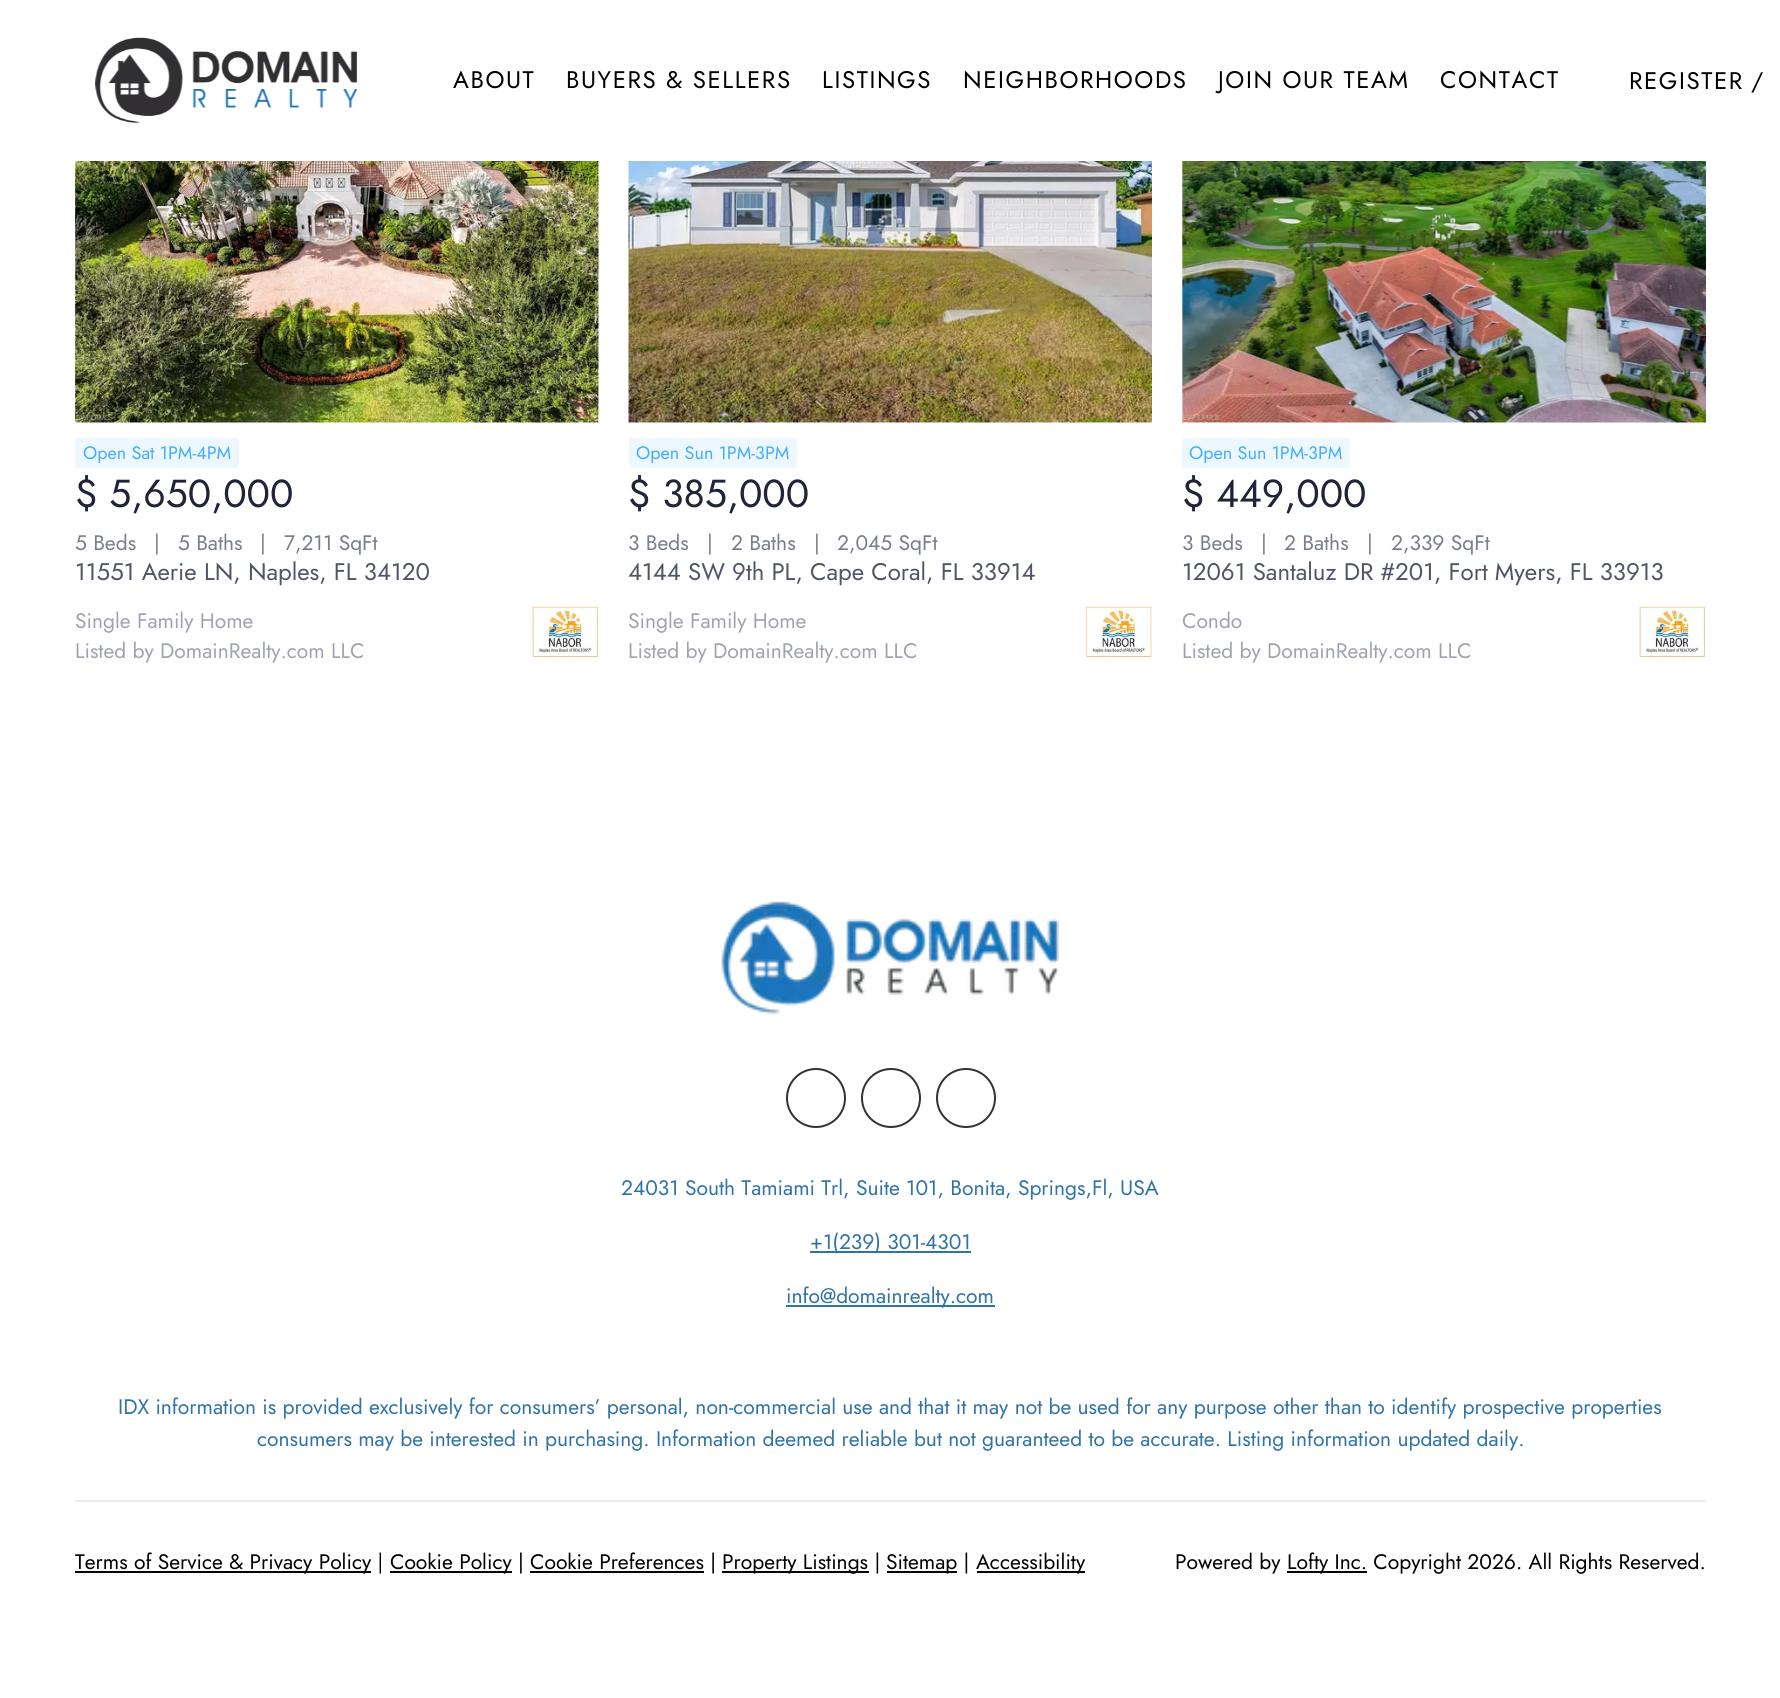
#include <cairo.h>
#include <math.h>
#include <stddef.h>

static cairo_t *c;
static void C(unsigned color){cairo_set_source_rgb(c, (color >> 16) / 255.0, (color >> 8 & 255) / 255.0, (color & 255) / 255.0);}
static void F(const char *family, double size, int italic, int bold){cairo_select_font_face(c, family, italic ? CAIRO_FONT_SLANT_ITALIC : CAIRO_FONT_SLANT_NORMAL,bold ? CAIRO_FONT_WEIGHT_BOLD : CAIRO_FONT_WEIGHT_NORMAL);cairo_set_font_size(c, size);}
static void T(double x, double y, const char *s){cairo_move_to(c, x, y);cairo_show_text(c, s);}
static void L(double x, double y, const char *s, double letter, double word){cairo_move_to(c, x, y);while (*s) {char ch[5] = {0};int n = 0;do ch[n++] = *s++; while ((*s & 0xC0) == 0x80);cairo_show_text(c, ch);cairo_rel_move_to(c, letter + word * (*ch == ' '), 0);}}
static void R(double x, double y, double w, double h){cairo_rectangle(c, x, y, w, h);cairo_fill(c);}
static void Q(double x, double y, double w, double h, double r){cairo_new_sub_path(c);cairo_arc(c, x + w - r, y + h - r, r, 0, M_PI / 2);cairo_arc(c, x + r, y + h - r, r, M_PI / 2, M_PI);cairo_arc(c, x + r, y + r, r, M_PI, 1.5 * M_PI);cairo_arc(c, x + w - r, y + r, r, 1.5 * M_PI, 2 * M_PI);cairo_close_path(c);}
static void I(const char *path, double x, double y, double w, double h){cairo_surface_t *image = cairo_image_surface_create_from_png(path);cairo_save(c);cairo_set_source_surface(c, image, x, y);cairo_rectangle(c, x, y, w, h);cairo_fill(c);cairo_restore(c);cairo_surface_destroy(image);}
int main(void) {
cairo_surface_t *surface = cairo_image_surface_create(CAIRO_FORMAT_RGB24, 1780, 1698);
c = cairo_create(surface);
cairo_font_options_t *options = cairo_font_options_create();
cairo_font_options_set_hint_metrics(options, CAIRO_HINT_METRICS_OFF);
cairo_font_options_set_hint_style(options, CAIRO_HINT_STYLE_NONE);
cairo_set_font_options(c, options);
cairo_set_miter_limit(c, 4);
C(0xffffff);
cairo_paint(c);
I("1.png",95,37,263,86);
F("Jost",24,0,0);
C(0x000000);
L(453,88,"ABOUT",1.6,0);
L(566,88,"BUYERS & SELLERS",1.6,0);
L(822,88,"LISTINGS",1.6,0);
L(963,88,"NEIGHBORHOODS",1.6,0);
L(1218,88,"JOIN OUR TEAM",1.6,0);
L(1440,88,"CONTACT",1.6,0);
L(1629,89,"REGISTER",1.6,0);
L(1751,89,"/",1.6,0);
I("2.png",75,161,524,262);
I("3.png",323,213,27,28);
C(0xecf7ff);
Q(75,438,164,30,3);
cairo_fill(c);
F("Jost",18,0,0);
C(0x45adff);
T(83,459,"Open Sat 1PM-4PM");
F("Jost",39,0,0);
C(0x202437);
T(75,507,"$ 5,650,000");
F("Jost",21,0,0);
C(0x797e8b);
T(75,550,"5 Beds");
T(154,550,"|");
T(178,550,"5 Baths");
T(260,550,"|");
T(284,550,"7,211 SqFt");
F("Jost",24,0,0);
C(0x515666);
T(75,580,"11551 Aerie LN, Naples, FL 34120");
F("Jost",21,0,0);
C(0xa0a3af);
T(75,628,"Single Family Home");
T(75,658,"Listed by DomainRealty.com LLC");
I("4.png",531,605,68,55);
I("5.png",628,161,524,262);
I("6.png",876,213,28,28);
C(0xecf7ff);
Q(629,438,168,30,3);
cairo_fill(c);
F("Jost",18,0,0);
C(0x45adff);
T(636,459,"Open Sun 1PM-3PM");
F("Jost",39,0,0);
C(0x202437);
T(628,507,"$ 385,000");
F("Jost",21,0,0);
C(0x797e8b);
T(628,550,"3 Beds");
T(707,550,"|");
T(731,550,"2 Baths");
T(814,550,"|");
T(837,550,"2,045 SqFt");
F("Jost",24,0,0);
C(0x515666);
T(628,580,"4144 SW 9th PL, Cape Coral, FL 33914");
F("Jost",21,0,0);
C(0xa0a3af);
T(628,628,"Single Family Home");
T(628,658,"Listed by DomainRealty.com LLC");
I("7.png",1084,605,68,55);
I("8.png",1182,161,524,262);
I("9.png",1430,213,27,28);
C(0xecf7ff);
Q(1182,438,168,30,3);
cairo_fill(c);
F("Jost",18,0,0);
C(0x45adff);
T(1189,459,"Open Sun 1PM-3PM");
F("Jost",39,0,0);
C(0x202437);
T(1182,507,"$ 449,000");
F("Jost",21,0,0);
C(0x797e8b);
T(1182,550,"3 Beds");
T(1261,550,"|");
T(1284,550,"2 Baths");
T(1367,550,"|");
T(1391,550,"2,339 SqFt");
F("Jost",24,0,0);
C(0x515666);
T(1182,580,"12061 Santaluz DR #201, Fort Myers, FL 33913");
F("Jost",21,0,0);
C(0xa0a3af);
T(1182,628,"Condo");
T(1182,658,"Listed by DomainRealty.com LLC");
I("10.png",1638,605,68,55);
I("11.png",721,901,338,114);
cairo_arc(c,816,1098,29,0,2 * M_PI);
C(0x333333);
cairo_stroke(c);
cairo_arc(c,891,1098,29,0,2 * M_PI);
cairo_stroke(c);
cairo_arc(c,966,1098,29,0,2 * M_PI);
cairo_stroke(c);
C(0x3073a8);
T(621,1195,"24031 South Tamiami Trl, Suite 101, Bonita, Springs,Fl, USA");
R(810,1251,161,2);
T(810,1249,"+1(239) 301-4301");
R(786,1305,209,2);
T(786,1303,"info@domainrealty.com");
T(118,1414,"IDX information is provided exclusively for consumers’ personal, non-commercial use and that it may not be used for any purpose other than to identify prospective properties");
T(257,1446,"consumers may be interested in purchasing. Information deemed reliable but not guaranteed to be accurate. Listing information updated daily.");
C(0xededed);
R(75,1500,1631,2);
C(0x000000);
R(75,1571,296,2);
T(75,1569,"Terms of Service & Privacy Policy |");
R(390,1571,122,2);
T(390,1569,"Cookie Policy | Cookie Preferences |");
R(722,1571,147,2);
T(722,1569,"Property Listings |");
R(887,1571,70,2);
T(886,1569,"Sitemap |");
R(977,1571,108,2);
T(976,1569,"Accessibility");
R(530,1571,174,2);
T(1175,1569,"Powered by");
R(1287,1571,80,2);
T(1287,1569,"Lofty Inc. Copyright 2026. All Rights Reserved.");
cairo_surface_write_to_png(surface, "o.png");
cairo_font_options_destroy(options);
cairo_destroy(c);
cairo_surface_destroy(surface);
return 0;
}
